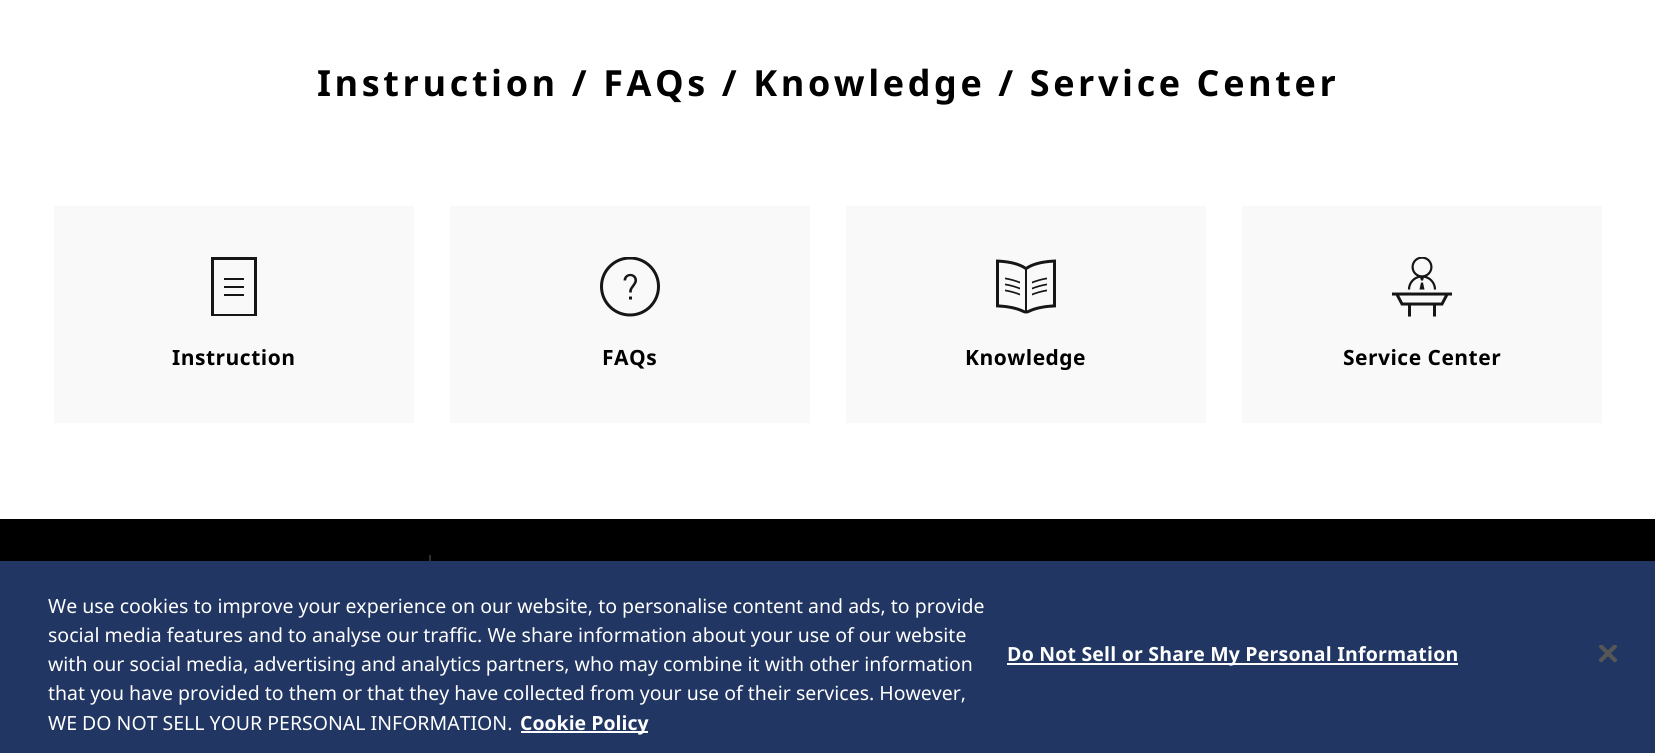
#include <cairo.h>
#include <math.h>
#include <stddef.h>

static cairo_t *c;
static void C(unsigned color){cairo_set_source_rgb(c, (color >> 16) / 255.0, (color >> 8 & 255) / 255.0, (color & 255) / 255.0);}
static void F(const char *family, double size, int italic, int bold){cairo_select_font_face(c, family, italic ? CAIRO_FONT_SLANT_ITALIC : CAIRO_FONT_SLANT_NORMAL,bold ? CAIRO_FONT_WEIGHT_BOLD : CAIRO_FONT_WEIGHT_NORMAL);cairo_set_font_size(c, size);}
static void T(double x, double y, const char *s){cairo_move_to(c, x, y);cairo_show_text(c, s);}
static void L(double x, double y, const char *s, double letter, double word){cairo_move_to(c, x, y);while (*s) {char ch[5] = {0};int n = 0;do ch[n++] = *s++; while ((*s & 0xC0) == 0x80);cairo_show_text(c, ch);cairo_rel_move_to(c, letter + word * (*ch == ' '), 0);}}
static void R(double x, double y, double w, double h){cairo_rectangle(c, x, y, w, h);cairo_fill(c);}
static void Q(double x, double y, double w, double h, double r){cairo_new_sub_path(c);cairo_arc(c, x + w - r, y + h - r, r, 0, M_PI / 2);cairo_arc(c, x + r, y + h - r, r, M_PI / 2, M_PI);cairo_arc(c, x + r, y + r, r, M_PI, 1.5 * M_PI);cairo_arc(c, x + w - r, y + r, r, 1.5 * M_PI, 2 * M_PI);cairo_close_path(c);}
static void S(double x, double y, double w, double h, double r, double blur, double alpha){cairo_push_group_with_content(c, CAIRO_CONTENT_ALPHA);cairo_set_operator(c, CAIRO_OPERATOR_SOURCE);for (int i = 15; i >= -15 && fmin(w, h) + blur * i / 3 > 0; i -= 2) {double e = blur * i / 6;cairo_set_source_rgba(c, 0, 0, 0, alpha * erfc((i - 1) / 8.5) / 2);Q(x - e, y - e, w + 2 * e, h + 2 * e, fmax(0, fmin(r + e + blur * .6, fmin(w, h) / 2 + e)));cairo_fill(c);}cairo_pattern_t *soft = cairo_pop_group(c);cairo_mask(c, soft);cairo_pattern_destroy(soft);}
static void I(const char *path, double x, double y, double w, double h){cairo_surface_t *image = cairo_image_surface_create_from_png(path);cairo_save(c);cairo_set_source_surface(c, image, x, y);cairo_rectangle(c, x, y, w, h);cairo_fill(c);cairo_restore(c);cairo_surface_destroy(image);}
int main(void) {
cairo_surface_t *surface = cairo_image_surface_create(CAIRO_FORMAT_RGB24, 1655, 753);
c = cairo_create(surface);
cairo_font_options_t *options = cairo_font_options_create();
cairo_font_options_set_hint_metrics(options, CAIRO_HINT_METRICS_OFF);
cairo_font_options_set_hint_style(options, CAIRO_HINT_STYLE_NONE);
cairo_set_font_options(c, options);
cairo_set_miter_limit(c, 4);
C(0xffffff);
cairo_paint(c);
F("Noto Sans",36,0,1);
C(0x000000);
L(317,96,"Instruction / FAQs / Knowledge / Service Center",3.6,0);
C(0xf9f9f9);
R(54,206,360,217);
cairo_save(c);
cairo_rectangle(c,204,257,60,60);
cairo_clip(c);
C(0x161616);
cairo_new_path(c);
cairo_move_to(c,214,260);
cairo_line_to(c,214,314);
cairo_line_to(c,254,314);
cairo_line_to(c,254,260);
cairo_close_path(c);
cairo_move_to(c,211,256);
cairo_line_to(c,257,256);
cairo_line_to(c,257,316);
cairo_line_to(c,211,316);
cairo_close_path(c);
cairo_move_to(c,224,288);
cairo_line_to(c,244,288);
cairo_line_to(c,244,286);
cairo_line_to(c,224,286);
cairo_close_path(c);
cairo_move_to(c,224,280);
cairo_line_to(c,244,280);
cairo_line_to(c,244,278);
cairo_line_to(c,224,278);
cairo_close_path(c);
cairo_move_to(c,224,296);
cairo_line_to(c,244,296);
cairo_line_to(c,244,294);
cairo_line_to(c,224,294);
cairo_close_path(c);
cairo_fill(c);
cairo_restore(c);
F("Noto Sans",21,0,1);
C(0x000000);
L(172,365,"Instruction",.5,0);
C(0xf9f9f9);
R(450,206,360,217);
I("1.png",600,257,60,60);
C(0x000000);
L(602,365,"FAQs",.5,0);
C(0xf9f9f9);
R(846,206,360,217);
I("2.png",996,259,60,55);
C(0x000000);
L(965,365,"Knowledge",.5,0);
C(0xf9f9f9);
R(1242,206,360,217);
I("3.png",1392,257,60,60);
C(0x000000);
L(1343,365,"Service Center",.5,0);
R(0,519,1655,42);
C(0x333333);
R(429,555,2,6);
C(0x000000);
S(0,561,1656,192,0,13.5,.2);
C(0x213662);
R(0,561,1655,192);
F("Noto Sans",19.5,0,0);
C(0xffffff);
T(48,613,"We use cookies to improve your experience on our website, to personalise content and ads, to provide");
T(48,642,"social media features and to analyse our traffic. We share information about your use of our website");
T(48,671,"with our social media, advertising and analytics partners, who may combine it with other information");
T(48,700,"that you have provided to them or that they have collected from your use of their services. However,");
T(48,730,"WE DO NOT SELL YOUR PERSONAL INFORMATION.");
R(521,731,127,2);
F("Noto Sans",19.5,0,1);
T(520,730,"Cookie Policy");
R(1007,663,451,2);
L(1007,661,"Do Not Sell or Share My Personal Information",.2,0);
I("4.png",1599,645,18,18);
cairo_surface_write_to_png(surface, "o.png");
cairo_font_options_destroy(options);
cairo_destroy(c);
cairo_surface_destroy(surface);
return 0;
}
